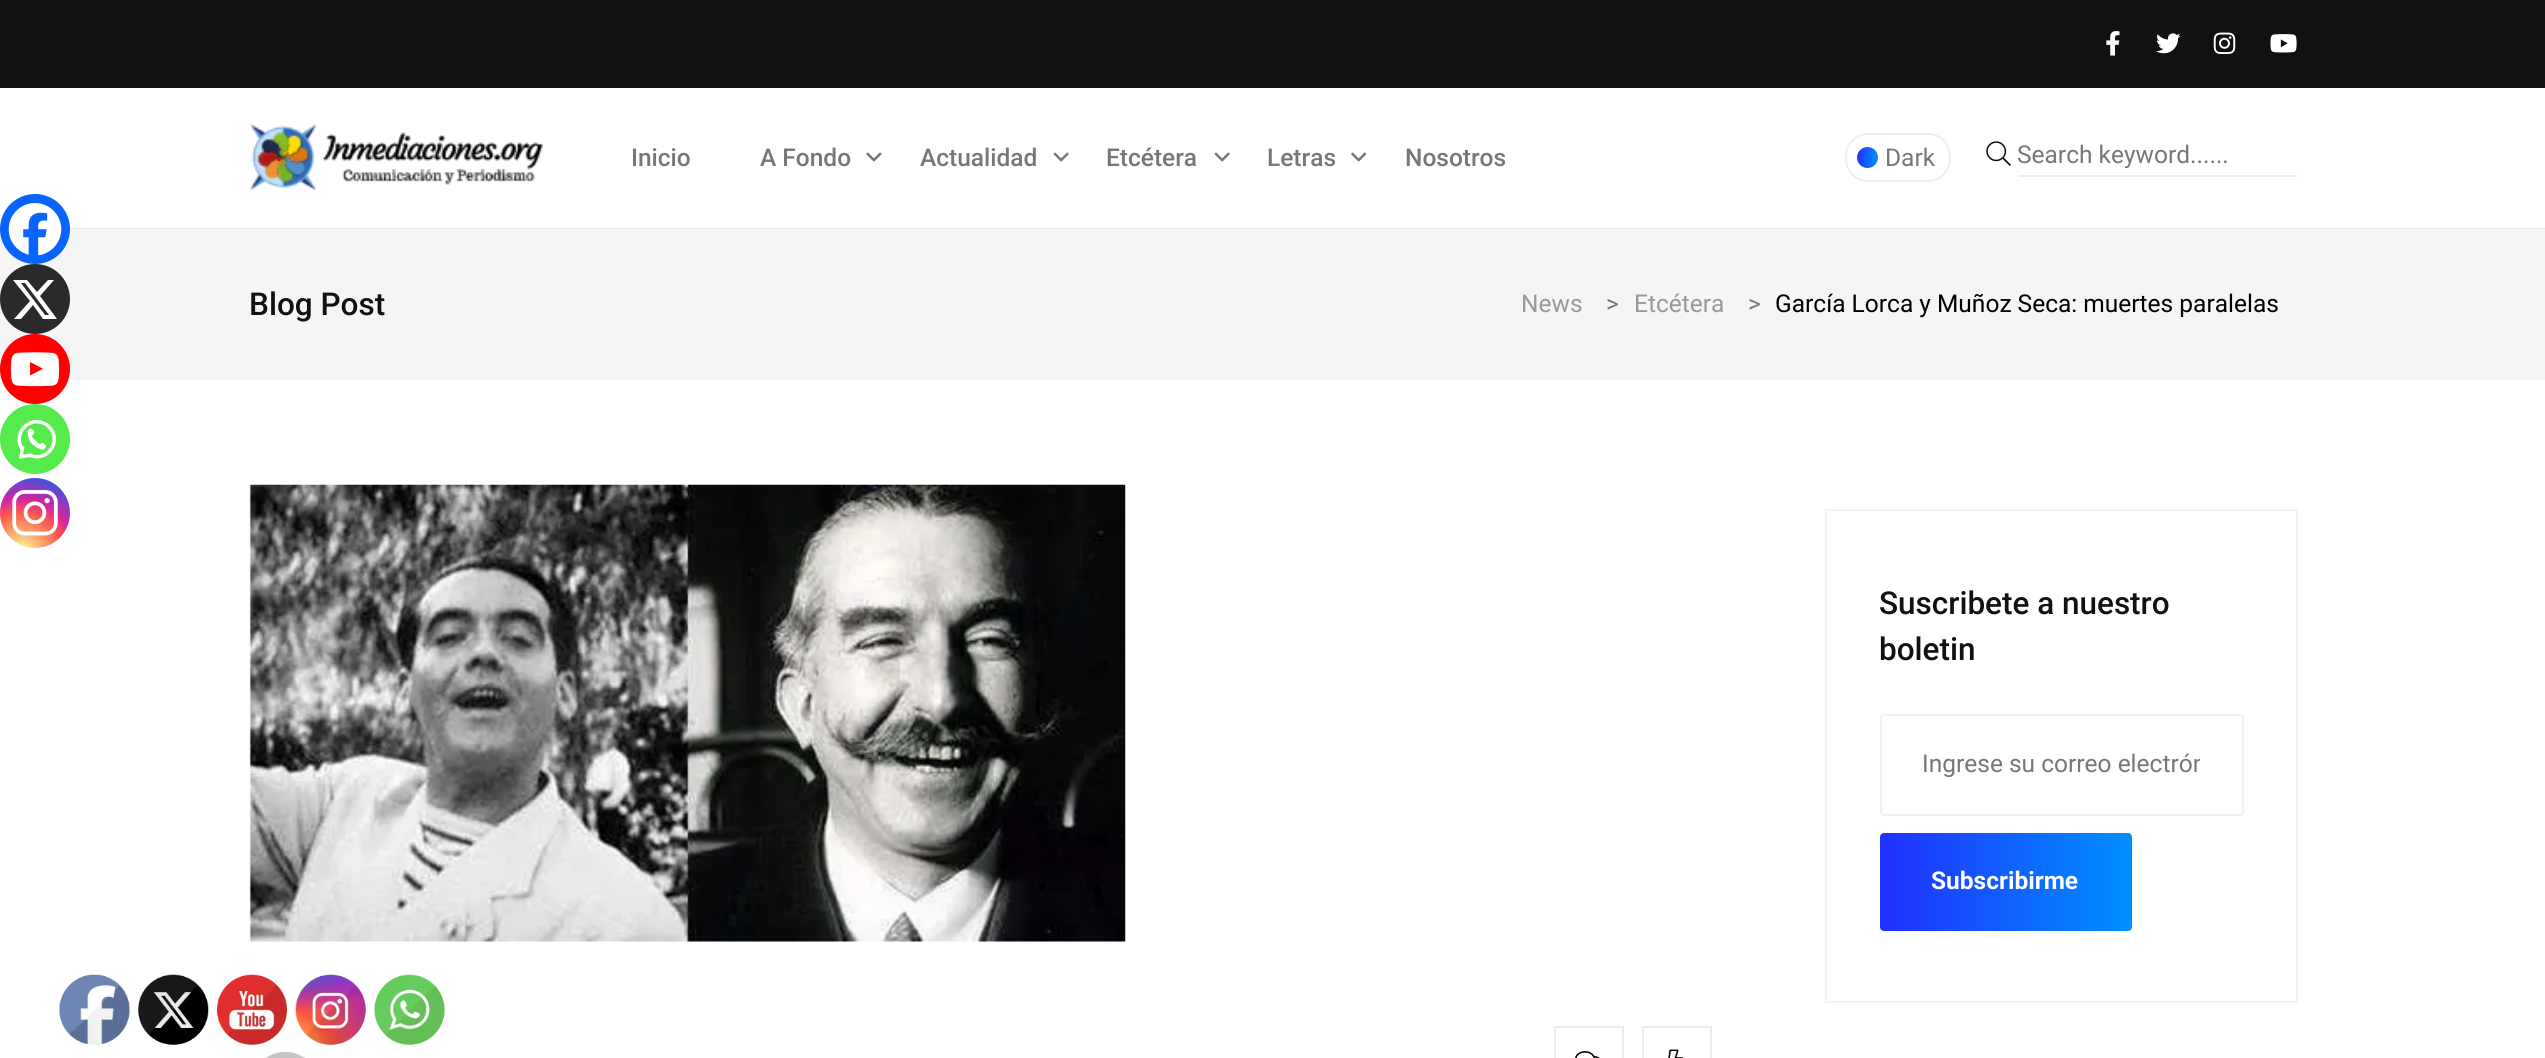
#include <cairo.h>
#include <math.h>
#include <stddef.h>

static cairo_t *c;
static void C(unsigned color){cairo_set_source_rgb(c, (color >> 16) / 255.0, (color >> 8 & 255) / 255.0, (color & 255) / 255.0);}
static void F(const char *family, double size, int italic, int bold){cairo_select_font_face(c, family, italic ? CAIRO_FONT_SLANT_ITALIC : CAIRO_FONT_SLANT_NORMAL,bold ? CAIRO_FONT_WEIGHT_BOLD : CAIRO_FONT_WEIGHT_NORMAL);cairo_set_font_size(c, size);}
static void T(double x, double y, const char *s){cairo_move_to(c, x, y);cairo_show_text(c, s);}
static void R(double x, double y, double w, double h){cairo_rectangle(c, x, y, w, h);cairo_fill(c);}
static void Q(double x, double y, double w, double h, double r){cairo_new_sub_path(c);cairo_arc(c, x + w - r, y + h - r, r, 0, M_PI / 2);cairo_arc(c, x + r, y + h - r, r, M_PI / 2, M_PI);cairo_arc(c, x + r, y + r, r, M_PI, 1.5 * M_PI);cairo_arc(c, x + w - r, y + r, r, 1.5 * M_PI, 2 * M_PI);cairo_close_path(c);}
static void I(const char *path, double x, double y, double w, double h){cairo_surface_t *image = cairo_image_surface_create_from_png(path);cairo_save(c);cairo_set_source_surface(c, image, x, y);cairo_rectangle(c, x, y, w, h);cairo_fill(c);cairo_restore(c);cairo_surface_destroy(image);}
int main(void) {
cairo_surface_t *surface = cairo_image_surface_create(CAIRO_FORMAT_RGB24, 2545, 1058);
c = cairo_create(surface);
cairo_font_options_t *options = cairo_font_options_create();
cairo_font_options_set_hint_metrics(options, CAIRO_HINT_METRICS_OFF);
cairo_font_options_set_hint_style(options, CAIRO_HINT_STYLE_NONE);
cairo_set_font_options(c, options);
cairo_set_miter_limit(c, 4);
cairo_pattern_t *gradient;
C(0xffffff);
cairo_paint(c);
C(0xebebeb);
R(0,228,2545,1);
C(0x111111);
R(0,0,2545,88);
I("1.png",2106,31,14,25);
I("2.png",2156,33,25,21);
I("3.png",2213,32,23,22);
I("4.png",2270,34,27,19);
I("5.png",250,124,293,67);
F("Roboto Medium",24.5,0,0);
C(0x777777);
T(631,166,"Inicio");
T(760,166,"A Fondo");
I("6.png",866,152,16,10);
T(920,166,"Actualidad");
I("7.png",1053,152,16,10);
T(1106,166,"Etcétera");
I("7.png",1214,152,16,10);
T(1267,166,"Letras");
I("8.png",1351,152,16,10);
T(1405,166,"Nosotros");
Q(1846,134,104,47,22);
C(0xefefef);
cairo_stroke(c);
gradient = cairo_pattern_create_linear(1857,158,1878,158);
cairo_pattern_add_color_stop_rgba(gradient,0,0.129,0.188,1,1);
cairo_pattern_add_color_stop_rgba(gradient,1,0,0.565,1,1);
cairo_set_source(c,gradient);
cairo_pattern_destroy(gradient);
cairo_arc(c,1867.5,157.5,10.5,0,2 * M_PI);
cairo_fill(c);
F("Roboto",24.5,0,0);
C(0x777777);
T(1885,166,"Dark");
I("9.png",1986,141,25,25);
C(0xeeeeee);
R(2018,175,280,2);
cairo_save(c);
cairo_rectangle(c,2018,140,255,28);
cairo_clip(c);
C(0x777777);
T(2017,163,"Search keyword......");
cairo_restore(c);
C(0xf5f5f5);
R(0,229,2545,151);
F("Roboto Medium",31.5,0,0);
C(0x111111);
T(249,315,"Blog Post");
F("Roboto",24.5,0,0);
C(0x999999);
T(1521,312,"News");
C(0x777777);
T(1606,312,">");
C(0x999999);
T(1634,312,"Etcétera");
C(0x777777);
T(1748,312,">");
C(0x000000);
T(1775,312,"García Lorca y Muñoz Seca: muertes paralelas");
C(0x0765fe);
cairo_new_path(c);
cairo_arc(c,35,229,35,0,2 * M_PI);
cairo_fill(c);
I("10.png",8,203,54,53);
C(0x2a2a2a);
cairo_arc(c,35,299,35,0,2 * M_PI);
cairo_fill(c);
C(0xffffff);
cairo_new_path(c);
cairo_move_to(c,48,280);
cairo_line_to(c,54,280);
cairo_line_to(c,40,296);
cairo_line_to(c,57,319);
cairo_line_to(c,43,319);
cairo_line_to(c,33,305);
cairo_line_to(c,21,319);
cairo_line_to(c,14,319);
cairo_line_to(c,30,301);
cairo_line_to(c,13,280);
cairo_line_to(c,27,280);
cairo_line_to(c,37,292);
cairo_close_path(c);
cairo_move_to(c,45,315);
cairo_line_to(c,49,315);
cairo_line_to(c,25,283);
cairo_line_to(c,21,283);
cairo_close_path(c);
cairo_fill(c);
C(0xff0000);
cairo_arc(c,35,369,35,0,2 * M_PI);
cairo_fill(c);
I("11.png",10,352,50,35);
C(0x55eb4c);
cairo_arc(c,35,439,35,0,2 * M_PI);
cairo_fill(c);
I("12.png",17,420,39,39);
gradient = cairo_pattern_create_radial(21,553,0,21,553,90);
cairo_pattern_add_color_stop_rgba(gradient,0,0.992,0.957,0.592,1);
cairo_pattern_add_color_stop_rgba(gradient,.05,0.992,0.957,0.592,1);
cairo_pattern_add_color_stop_rgba(gradient,.45,0.992,0.349,0.286,1);
cairo_pattern_add_color_stop_rgba(gradient,.6,0.839,0.141,0.624,1);
cairo_pattern_add_color_stop_rgba(gradient,.9,0.157,0.353,0.922,1);
cairo_set_source(c,gradient);
cairo_pattern_destroy(gradient);
cairo_arc(c,35,513,35,0,2 * M_PI);
cairo_fill(c);
I("13.png",12,490,46,46);
I("14.png",249,484,877,458);
I("15.png",265,1052,40,6);
cairo_rectangle(c,1555,1027,68,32);
C(0xececec);
cairo_stroke(c);
I("16.png",1575,1051,25,7);
cairo_rectangle(c,1643,1027,68,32);
cairo_stroke(c);
I("17.png",1668,1049,15,9);
cairo_rectangle(c,1826,510,471,492);
C(0xf2f2f2);
cairo_stroke(c);
F("Roboto Medium",31.5,0,0);
C(0x111111);
T(1879,614,"Suscribete a nuestro");
T(1879,660,"boletin");
Q(1881,715,362,100,3);
C(0xf2f2f2);
cairo_stroke(c);
cairo_save(c);
cairo_rectangle(c,1923,749,277,28);
cairo_clip(c);
F("Roboto",24.5,0,0);
C(0x777777);
T(1922,772,"Ingrese su correo electrón");
cairo_restore(c);
gradient = cairo_pattern_create_linear(1880,882,2132,882);
cairo_pattern_add_color_stop_rgba(gradient,0,0.129,0.188,1,1);
cairo_pattern_add_color_stop_rgba(gradient,1,0,0.565,1,1);
cairo_set_source(c,gradient);
cairo_pattern_destroy(gradient);
Q(1880,833,252,98,4);
cairo_fill(c);
F("Roboto",24.5,0,1);
C(0xffffff);
T(1931,889,"Subscribirme");
I("18.png",59,974,71,71);
I("19.png",138,974,71,71);
I("20.png",217,974,70,71);
I("21.png",295,974,71,71);
I("22.png",374,974,71,71);
cairo_surface_write_to_png(surface, "o.png");
cairo_font_options_destroy(options);
cairo_destroy(c);
cairo_surface_destroy(surface);
return 0;
}
